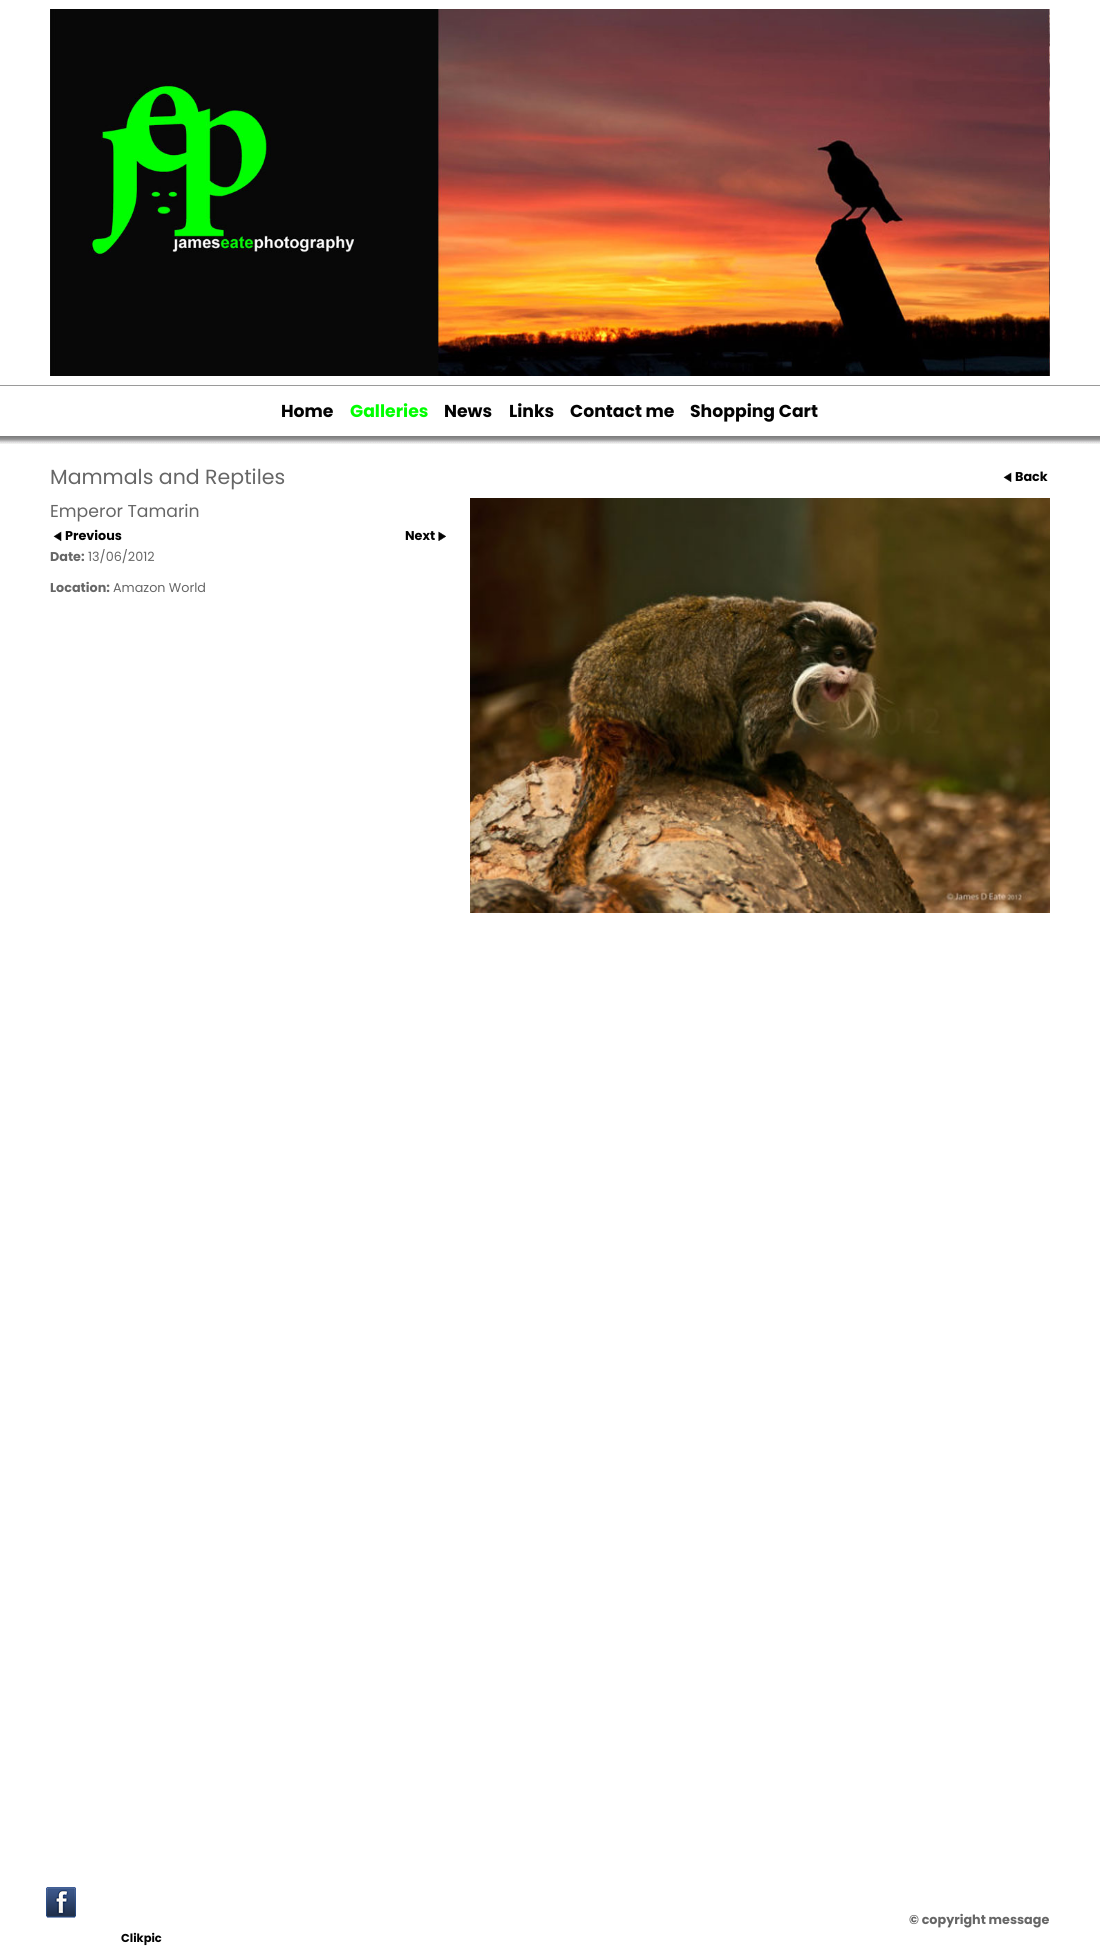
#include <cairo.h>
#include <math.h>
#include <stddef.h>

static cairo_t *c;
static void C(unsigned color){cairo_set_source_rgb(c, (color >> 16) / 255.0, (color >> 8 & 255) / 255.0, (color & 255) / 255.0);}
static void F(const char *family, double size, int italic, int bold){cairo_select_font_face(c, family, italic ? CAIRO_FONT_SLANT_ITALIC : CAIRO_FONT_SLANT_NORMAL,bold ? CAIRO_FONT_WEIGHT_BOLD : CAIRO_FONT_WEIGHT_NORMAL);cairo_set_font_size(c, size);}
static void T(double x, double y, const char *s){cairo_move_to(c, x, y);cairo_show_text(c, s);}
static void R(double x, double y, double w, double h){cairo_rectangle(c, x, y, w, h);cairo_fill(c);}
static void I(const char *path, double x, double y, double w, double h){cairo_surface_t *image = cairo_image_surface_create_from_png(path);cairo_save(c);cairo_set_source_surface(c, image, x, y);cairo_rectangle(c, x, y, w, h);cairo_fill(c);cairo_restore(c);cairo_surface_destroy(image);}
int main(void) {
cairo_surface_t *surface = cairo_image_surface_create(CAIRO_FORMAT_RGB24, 1100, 1959);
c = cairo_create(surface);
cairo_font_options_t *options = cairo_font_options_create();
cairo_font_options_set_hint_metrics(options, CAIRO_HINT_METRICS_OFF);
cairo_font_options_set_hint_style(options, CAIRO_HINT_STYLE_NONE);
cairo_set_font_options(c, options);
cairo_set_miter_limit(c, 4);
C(0xffffff);
cairo_paint(c);
C(0x9a9a9a);
R(0,385,1100,1);
I("1.png",50,9,1000,367);
F("Poppins",17.25,0,1);
C(0x030303);
T(281,417,"Home");
C(0x00ff00);
T(350,417,"Galleries");
C(0x030303);
T(444,417,"News");
T(509,417,"Links");
T(570,417,"Contact me");
T(690,417,"Shopping Cart");
I("2.png",0,436,1100,8);
F("Poppins",20.5,0,0);
C(0x666666);
T(50,484,"Mammals and Reptiles");
I("3.png",1003,472,9,10);
F("Poppins",12.75,0,1);
C(0x030303);
T(1015,481,"Back");
F("Poppins",17.25,0,0);
C(0x666666);
T(50,517,"Emperor Tamarin");
I("3.png",53,531,9,10);
F("Poppins",12.75,0,1);
C(0x030303);
T(65,540,"Previous");
T(405,540,"Next");
I("4.png",438,531,8,10);
C(0x666666);
T(50,561,"Date:");
F("Poppins",12.75,0,0);
T(88,561,"13/06/2012");
F("Poppins",12.75,0,1);
T(50,592,"Location:");
F("Poppins",12.75,0,0);
T(113,592,"Amazon World");
I("5.png",470,498,580,415);
I("6.png",46,1887,30,31);
F("Poppins",12.75,0,1);
T(909,1924,"© copyright message");
F("Poppins",11.5,0,1);
C(0x030303);
T(121,1942,"Clikpic");
cairo_surface_write_to_png(surface, "o.png");
cairo_font_options_destroy(options);
cairo_destroy(c);
cairo_surface_destroy(surface);
return 0;
}
